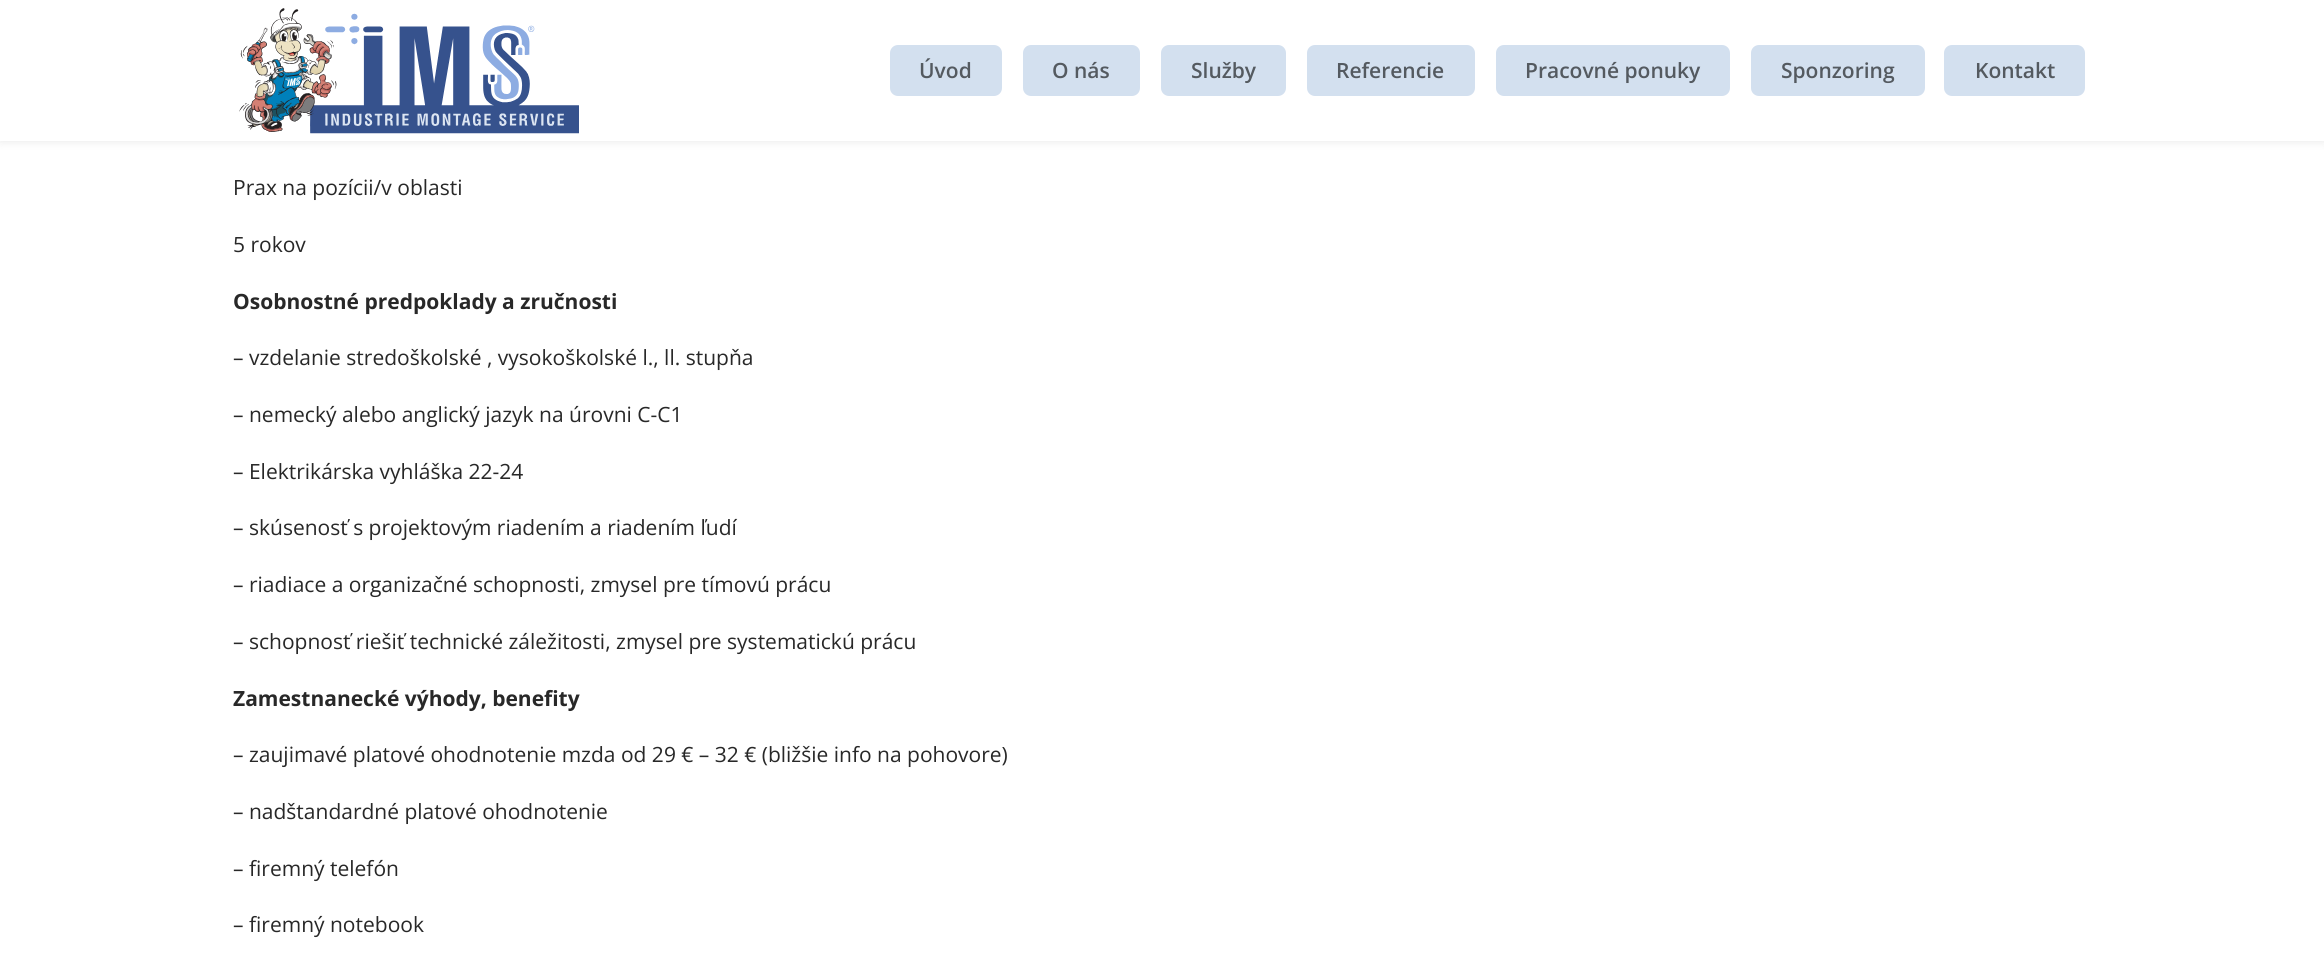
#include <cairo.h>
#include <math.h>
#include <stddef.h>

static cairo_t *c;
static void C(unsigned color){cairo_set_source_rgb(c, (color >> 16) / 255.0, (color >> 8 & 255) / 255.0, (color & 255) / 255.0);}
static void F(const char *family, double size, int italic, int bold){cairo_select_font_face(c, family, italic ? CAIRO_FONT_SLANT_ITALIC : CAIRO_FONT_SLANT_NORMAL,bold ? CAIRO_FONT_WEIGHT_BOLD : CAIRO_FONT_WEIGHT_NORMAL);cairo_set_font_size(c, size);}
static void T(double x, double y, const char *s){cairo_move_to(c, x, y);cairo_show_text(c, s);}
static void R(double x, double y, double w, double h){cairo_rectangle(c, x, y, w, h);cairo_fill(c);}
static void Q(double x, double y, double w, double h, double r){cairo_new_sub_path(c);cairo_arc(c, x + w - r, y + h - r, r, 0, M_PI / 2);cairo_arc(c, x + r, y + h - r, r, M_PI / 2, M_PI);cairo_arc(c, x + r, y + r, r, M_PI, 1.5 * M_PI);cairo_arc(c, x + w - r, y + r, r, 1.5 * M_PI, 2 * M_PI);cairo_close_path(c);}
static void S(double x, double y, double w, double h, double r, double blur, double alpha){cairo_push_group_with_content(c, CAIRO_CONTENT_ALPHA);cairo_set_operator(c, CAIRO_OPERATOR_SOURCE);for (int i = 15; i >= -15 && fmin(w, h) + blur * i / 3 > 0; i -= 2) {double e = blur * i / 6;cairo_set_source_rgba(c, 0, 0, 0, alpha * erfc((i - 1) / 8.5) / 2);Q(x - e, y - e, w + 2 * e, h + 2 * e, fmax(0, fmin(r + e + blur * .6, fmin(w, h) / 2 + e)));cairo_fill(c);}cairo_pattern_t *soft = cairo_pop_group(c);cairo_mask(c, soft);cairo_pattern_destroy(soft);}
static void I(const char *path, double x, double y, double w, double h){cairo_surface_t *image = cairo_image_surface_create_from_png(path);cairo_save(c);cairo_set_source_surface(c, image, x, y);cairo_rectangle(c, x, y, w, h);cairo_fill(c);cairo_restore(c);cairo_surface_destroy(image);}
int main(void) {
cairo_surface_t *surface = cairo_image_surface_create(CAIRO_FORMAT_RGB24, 2324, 955);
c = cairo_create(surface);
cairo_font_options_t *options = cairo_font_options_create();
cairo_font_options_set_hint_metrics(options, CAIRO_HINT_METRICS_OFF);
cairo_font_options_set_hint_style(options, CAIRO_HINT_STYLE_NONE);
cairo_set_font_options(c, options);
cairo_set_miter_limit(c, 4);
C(0xffffff);
cairo_paint(c);
C(0x000000);
S(0,0,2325,141,0,5,.1);
C(0xffffff);
R(0,0,2324,141);
I("1.png",239,8,340,126);
C(0xd3e0ef);
Q(890,45,112,51,8);
cairo_fill(c);
F("Open Sans SemiBold",21,0,0);
C(0x545a60);
T(919,78,"Úvod");
C(0xd3e0ef);
Q(1023,45,117,51,8);
cairo_fill(c);
C(0x545a60);
T(1052,78,"O nás");
C(0xd3e0ef);
Q(1161,45,125,51,8);
cairo_fill(c);
C(0x545a60);
T(1191,78,"Služby");
C(0xd3e0ef);
Q(1307,45,168,51,8);
cairo_fill(c);
C(0x545a60);
T(1336,78,"Referencie");
C(0xd3e0ef);
Q(1496,45,234,51,8);
cairo_fill(c);
C(0x545a60);
T(1525,78,"Pracovné ponuky");
C(0xd3e0ef);
Q(1751,45,174,51,8);
cairo_fill(c);
C(0x545a60);
T(1781,78,"Sponzoring");
C(0xd3e0ef);
Q(1944,45,141,51,8);
cairo_fill(c);
C(0x545a60);
T(1975,78,"Kontakt");
F("Open Sans",21,0,0);
C(0x282828);
T(233,195,"Prax na pozícii/v oblasti");
T(233,252,"5 rokov");
F("Open Sans",21,0,1);
T(233,309,"Osobnostné predpoklady a zručnosti");
F("Open Sans",21,0,0);
T(233,365,"– vzdelanie stredoškolské , vysokoškolské l., ll. stupňa");
T(233,422,"– nemecký alebo anglický jazyk na úrovni C-C1");
T(233,479,"– Elektrikárska vyhláška 22-24");
T(233,535,"– skúsenosť s projektovým riadením a riadením ľudí");
T(233,592,"– riadiace a organizačné schopnosti, zmysel pre tímovú prácu");
T(233,649,"– schopnosť riešiť technické záležitosti, zmysel pre systematickú prácu");
F("Open Sans",21,0,1);
T(233,706,"Zamestnanecké výhody, benefity");
F("Open Sans",21,0,0);
T(233,762,"– zaujimavé platové ohodnotenie mzda od 29 € – 32 € (bližšie info na pohovore)");
T(233,819,"– nadštandardné platové ohodnotenie");
T(233,876,"– firemný telefón");
T(233,932,"– firemný notebook");
cairo_surface_write_to_png(surface, "o.png");
cairo_font_options_destroy(options);
cairo_destroy(c);
cairo_surface_destroy(surface);
return 0;
}
